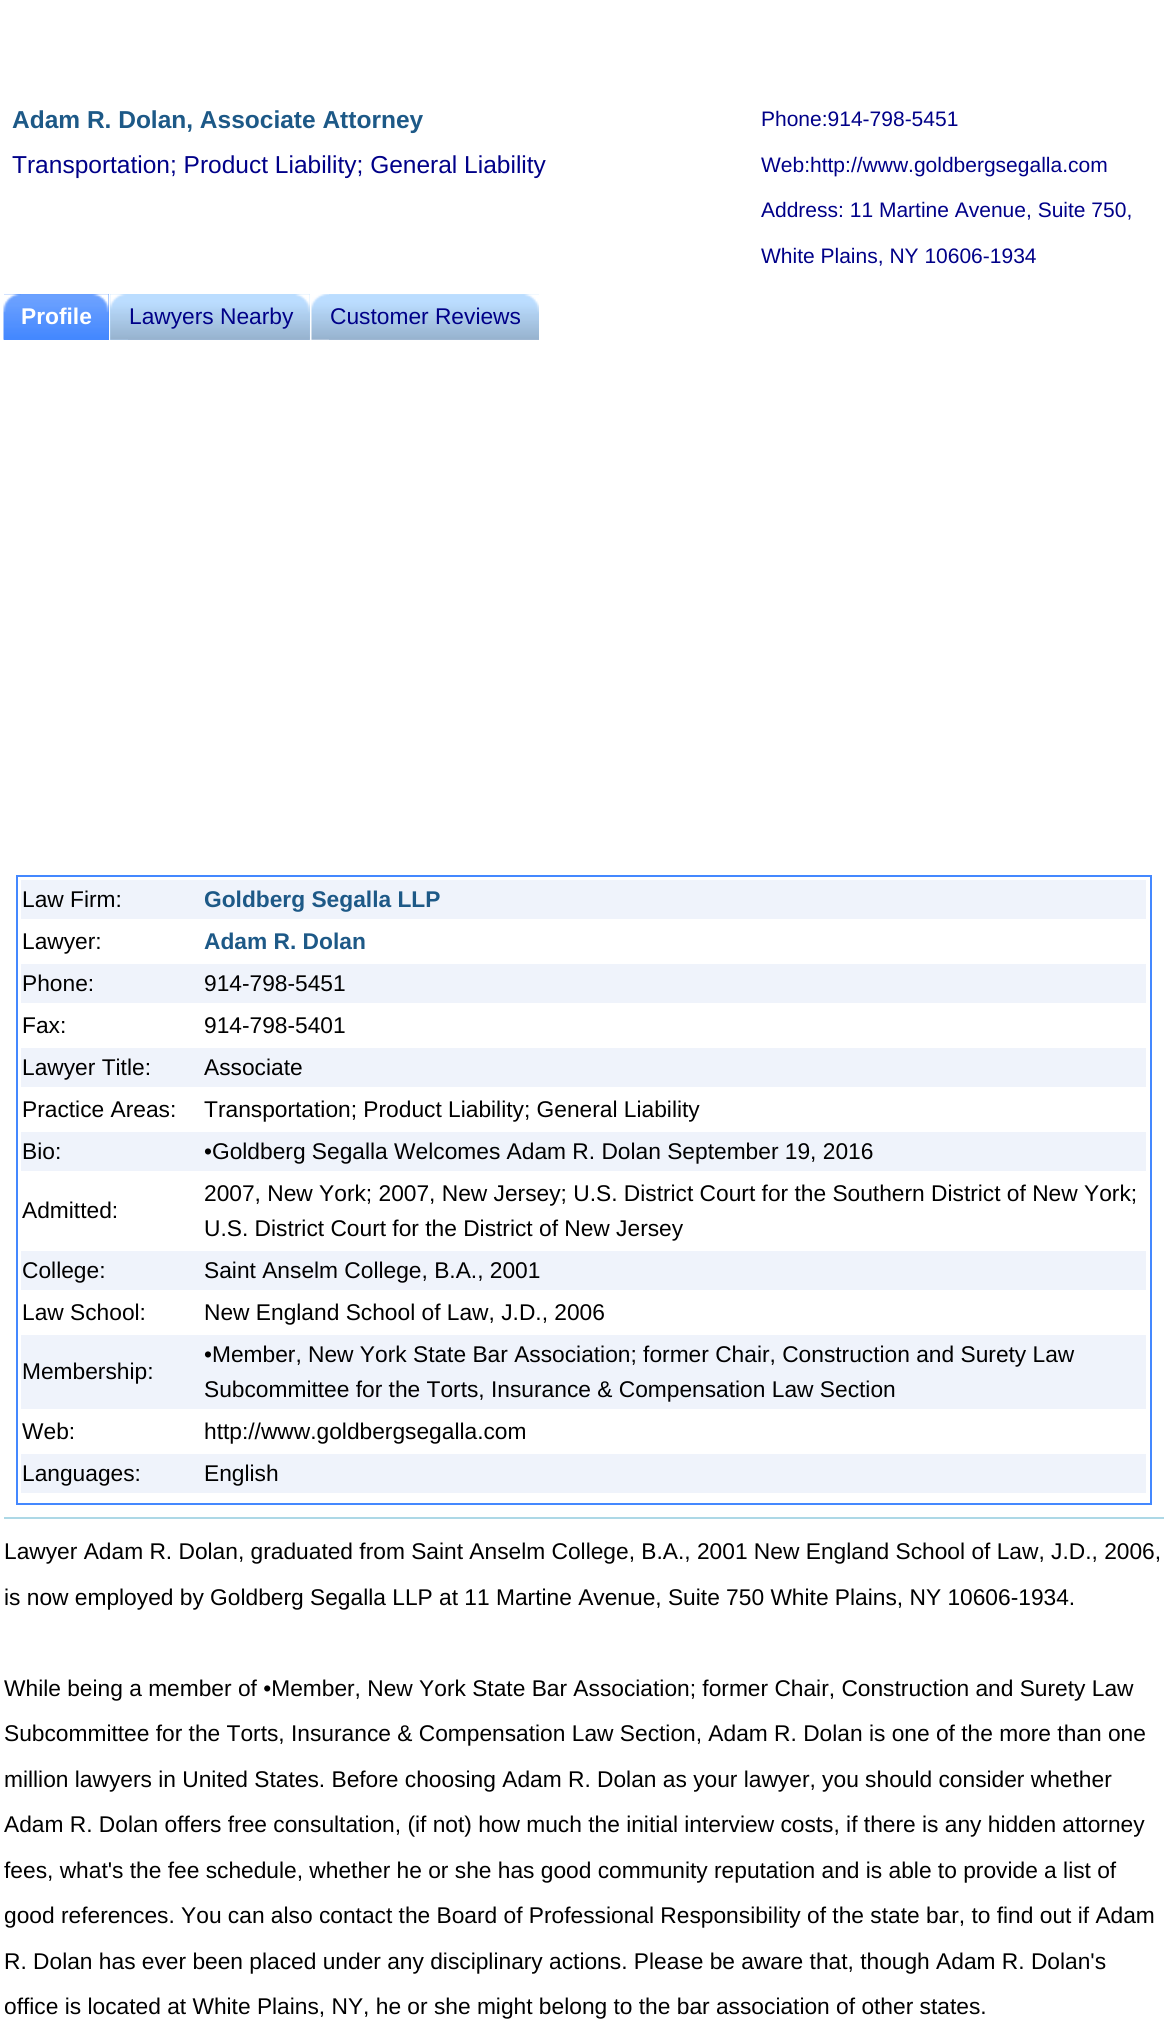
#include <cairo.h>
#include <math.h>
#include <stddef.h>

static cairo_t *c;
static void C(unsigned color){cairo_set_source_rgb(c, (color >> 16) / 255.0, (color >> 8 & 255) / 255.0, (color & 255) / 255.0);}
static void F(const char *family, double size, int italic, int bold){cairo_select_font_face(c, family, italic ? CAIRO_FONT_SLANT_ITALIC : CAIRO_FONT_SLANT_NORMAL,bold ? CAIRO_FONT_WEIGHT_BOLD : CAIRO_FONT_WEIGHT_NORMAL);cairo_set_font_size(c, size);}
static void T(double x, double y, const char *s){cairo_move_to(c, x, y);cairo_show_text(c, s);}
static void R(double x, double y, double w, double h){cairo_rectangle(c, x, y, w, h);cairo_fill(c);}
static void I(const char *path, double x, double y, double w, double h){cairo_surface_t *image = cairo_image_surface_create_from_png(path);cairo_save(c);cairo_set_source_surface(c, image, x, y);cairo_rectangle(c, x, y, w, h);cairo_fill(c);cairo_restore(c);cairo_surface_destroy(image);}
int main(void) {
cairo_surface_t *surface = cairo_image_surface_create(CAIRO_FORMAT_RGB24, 1167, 2023);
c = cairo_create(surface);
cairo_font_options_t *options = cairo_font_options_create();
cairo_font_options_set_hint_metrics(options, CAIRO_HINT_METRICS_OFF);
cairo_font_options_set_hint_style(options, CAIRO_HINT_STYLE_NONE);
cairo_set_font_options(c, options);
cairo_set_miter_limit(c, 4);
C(0xffffff);
cairo_paint(c);
F("Liberation Sans",24.5,0,1);
C(0x1d5987);
T(12,128,"Adam R. Dolan, Associate Attorney");
F("Liberation Sans",24.5,0,0);
C(0x000088);
T(12,173,"Transportation; Product Liability; General Liability");
F("Liberation Sans",21,0,0);
T(761,126,"Phone:914-798-5451");
T(761,172,"Web:http://www.goldbergsegalla.com");
T(761,217,"Address: 11 Martine Avenue, Suite 750,");
T(761,263,"White Plains, NY 10606-1934");
C(0x4488ff);
R(4,294,105,46);
I("1.png",3,294,106,46);
I("2.png",21,294,88,27);
F("Liberation Sans",22.75,0,1);
C(0xffffff);
T(21,324,"Profile");
C(0xbbddff);
R(110,294,200,46);
I("3.png",110,294,200,46);
I("4.png",128,294,182,46);
F("Liberation Sans",22.75,0,0);
C(0x000088);
T(129,324,"Lawyers Nearby");
I("5.png",311,294,228,46);
I("6.png",329,294,210,46);
T(330,324,"Customer Reviews");
cairo_rectangle(c,17,876,1134,628);
C(0x4488ff);
cairo_stroke(c);
C(0xeff3fb);
R(21,880,1125,39);
C(0x000000);
T(22,907,"Law Firm:");
F("Liberation Sans",22.75,0,1);
C(0x1d5987);
T(204,907,"Goldberg Segalla LLP");
F("Liberation Sans",22.75,0,0);
C(0x000000);
T(22,949,"Lawyer:");
F("Liberation Sans",22.75,0,1);
C(0x1d5987);
T(204,949,"Adam R. Dolan");
C(0xeff3fb);
R(21,964,1125,39);
F("Liberation Sans",22.75,0,0);
C(0x000000);
T(22,991,"Phone:");
T(204,991,"914-798-5451");
T(22,1033,"Fax:");
T(204,1033,"914-798-5401");
C(0xeff3fb);
R(21,1048,1125,39);
C(0x000000);
T(22,1075,"Lawyer Title:");
T(204,1075,"Associate");
T(22,1117,"Practice Areas:");
T(204,1117,"Transportation; Product Liability; General Liability");
C(0xeff3fb);
R(21,1132,1125,39);
C(0x000000);
T(22,1159,"Bio:");
T(204,1159,"•Goldberg Segalla Welcomes Adam R. Dolan September 19, 2016");
T(22,1218,"Admitted:");
T(204,1201,"2007, New York; 2007, New Jersey; U.S. District Court for the Southern District of New York;");
T(204,1236,"U.S. District Court for the District of New Jersey");
C(0xeff3fb);
R(21,1251,1125,39);
C(0x000000);
T(22,1278,"College:");
T(204,1278,"Saint Anselm College, B.A., 2001");
T(22,1320,"Law School:");
T(204,1320,"New England School of Law, J.D., 2006");
C(0xeff3fb);
R(21,1335,1125,74);
C(0x000000);
T(22,1379,"Membership:");
T(204,1362,"•Member, New York State Bar Association; former Chair, Construction and Surety Law");
T(204,1397,"Subcommittee for the Torts, Insurance & Compensation Law Section");
T(22,1439,"Web:");
T(204,1439,"http://www.goldbergsegalla.com");
C(0xeff3fb);
R(21,1454,1125,39);
C(0x000000);
T(22,1481,"Languages:");
T(204,1481,"English");
C(0xadd8e6);
R(4,1517,1160,2);
C(0x000000);
T(4,1559,"Lawyer Adam R. Dolan, graduated from Saint Anselm College, B.A., 2001 New England School of Law, J.D., 2006,");
T(4,1605,"is now employed by Goldberg Segalla LLP at 11 Martine Avenue, Suite 750 White Plains, NY 10606-1934.");
T(4,1696,"While being a member of •Member, New York State Bar Association; former Chair, Construction and Surety Law");
T(4,1741,"Subcommittee for the Torts, Insurance & Compensation Law Section, Adam R. Dolan is one of the more than one");
T(4,1787,"million lawyers in United States. Before choosing Adam R. Dolan as your lawyer, you should consider whether");
T(4,1832,"Adam R. Dolan offers free consultation, (if not) how much the initial interview costs, if there is any hidden attorney");
T(4,1878,"fees, what's the fee schedule, whether he or she has good community reputation and is able to provide a list of");
T(4,1923,"good references. You can also contact the Board of Professional Responsibility of the state bar, to find out if Adam");
T(4,1969,"R. Dolan has ever been placed under any disciplinary actions. Please be aware that, though Adam R. Dolan's");
T(4,2014,"office is located at White Plains, NY, he or she might belong to the bar association of other states.");
cairo_surface_write_to_png(surface, "o.png");
cairo_font_options_destroy(options);
cairo_destroy(c);
cairo_surface_destroy(surface);
return 0;
}
